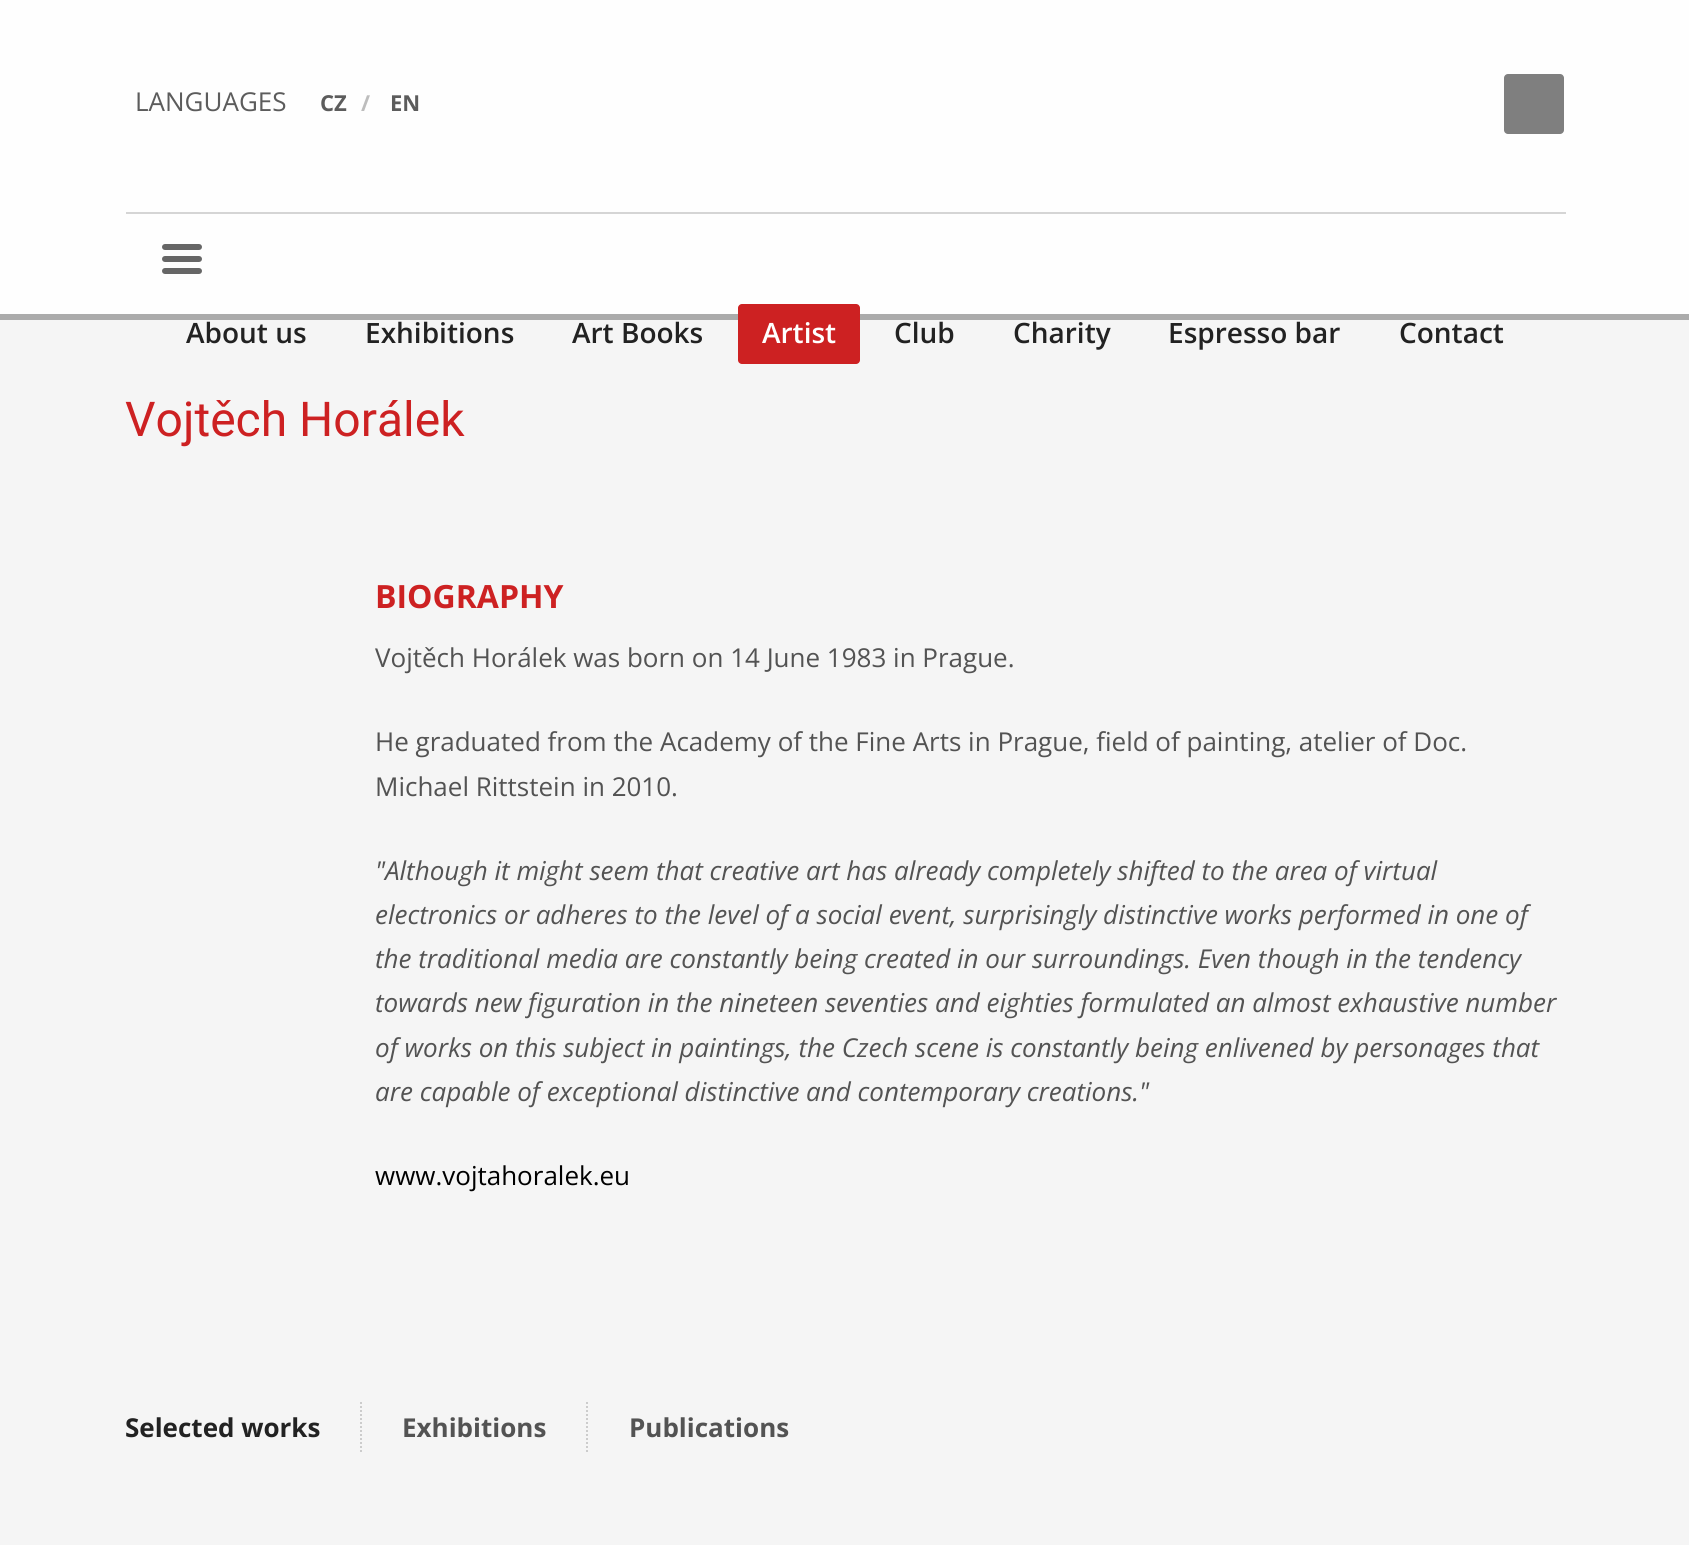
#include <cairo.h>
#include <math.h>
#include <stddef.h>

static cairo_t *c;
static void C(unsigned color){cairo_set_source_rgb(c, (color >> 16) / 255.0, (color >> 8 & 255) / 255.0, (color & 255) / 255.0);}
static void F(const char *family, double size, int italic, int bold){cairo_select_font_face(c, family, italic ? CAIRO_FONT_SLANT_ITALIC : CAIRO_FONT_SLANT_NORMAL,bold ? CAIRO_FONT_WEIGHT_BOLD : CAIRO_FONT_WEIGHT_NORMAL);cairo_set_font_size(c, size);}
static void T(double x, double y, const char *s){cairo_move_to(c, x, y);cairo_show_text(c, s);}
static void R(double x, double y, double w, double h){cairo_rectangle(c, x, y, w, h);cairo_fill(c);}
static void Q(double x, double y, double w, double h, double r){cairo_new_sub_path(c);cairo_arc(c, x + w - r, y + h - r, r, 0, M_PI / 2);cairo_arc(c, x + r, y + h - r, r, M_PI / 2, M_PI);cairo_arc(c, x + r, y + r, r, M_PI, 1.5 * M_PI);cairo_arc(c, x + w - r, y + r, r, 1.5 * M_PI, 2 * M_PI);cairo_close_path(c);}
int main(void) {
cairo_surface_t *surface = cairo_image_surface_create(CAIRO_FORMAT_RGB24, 1689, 1545);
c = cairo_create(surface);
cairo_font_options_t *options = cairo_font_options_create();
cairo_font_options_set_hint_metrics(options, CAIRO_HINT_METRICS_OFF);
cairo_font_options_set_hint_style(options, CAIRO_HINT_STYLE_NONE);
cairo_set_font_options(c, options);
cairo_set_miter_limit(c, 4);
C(0xf5f5f5);
cairo_paint(c);
C(0xfefefe);
R(0,0,1689,314);
C(0xababab);
R(0,314,1689,6);
F("Open Sans",26,0,0);
C(0x5c5c5c);
T(135,111,"LANGUAGES");
F("Open Sans",22,0,1);
T(320,111,"CZ");
C(0xbdbdbd);
T(361,111,"/");
C(0x5c5c5c);
T(390,111,"EN");
C(0x7f7f7f);
Q(1504,74,60,60,4);
cairo_fill(c);
C(0xd5d5d5);
R(126,212,1440,2);
C(0x666666);
Q(162,244,40,6,3);
cairo_fill(c);
Q(162,256,40,6,3);
cairo_fill(c);
Q(162,268,40,6,3);
cairo_fill(c);
F("Open Sans SemiBold",28,0,0);
C(0x222222);
T(186,343,"About us");
T(365,343,"Exhibitions");
T(572,343,"Art Books");
C(0xcd2122);
Q(738,304,122,60,4);
cairo_fill(c);
C(0xffffff);
T(762,343,"Artist");
C(0x222222);
T(894,343,"Club");
T(1013,343,"Charity");
T(1168,343,"Espresso bar");
T(1399,343,"Contact");
F("Roboto",48,0,0);
C(0xcd2122);
T(125,436,"Vojtěch Horálek");
F("Open Sans",32,0,1);
T(375,608,"BIOGRAPHY");
F("Open Sans",26,0,0);
C(0x535353);
T(375,667,"Vojtěch Horálek was born on 14 June 1983 in Prague.");
T(375,751,"He graduated from the Academy of the Fine Arts in Prague, field of painting, atelier of Doc.");
T(375,796,"Michael Rittstein in 2010.");
F("Open Sans",26,1,0);
T(375,880,"\"Although it might seem that creative art has already completely shifted to the area of virtual");
T(375,924,"electronics or adheres to the level of a social event, surprisingly distinctive works performed in one of");
T(375,968,"the traditional media are constantly being created in our surroundings. Even though in the tendency");
T(375,1012,"towards new figuration in the nineteen seventies and eighties formulated an almost exhaustive number");
T(375,1057,"of works on this subject in paintings, the Czech scene is constantly being enlivened by personages that");
T(375,1101,"are capable of exceptional distinctive and contemporary creations.\"");
F("Open Sans",26,0,0);
C(0x000000);
T(375,1185,"www.vojtahoralek.eu");
F("Open Sans",26,0,1);
C(0x222222);
T(125,1437,"Selected works");
cairo_new_path(c);
cairo_move_to(c,361,1402);
cairo_line_to(c,361,1454);
C(0xcccccc);
cairo_set_dash(c,(double[]){2,2},2,0);
cairo_stroke(c);
C(0x535353);
T(402,1437,"Exhibitions");
cairo_new_path(c);
cairo_move_to(c,587,1402);
cairo_line_to(c,587,1454);
C(0xcccccc);
cairo_stroke(c);
C(0x535353);
T(629,1437,"Publications");
cairo_surface_write_to_png(surface, "o.png");
cairo_font_options_destroy(options);
cairo_destroy(c);
cairo_surface_destroy(surface);
return 0;
}
